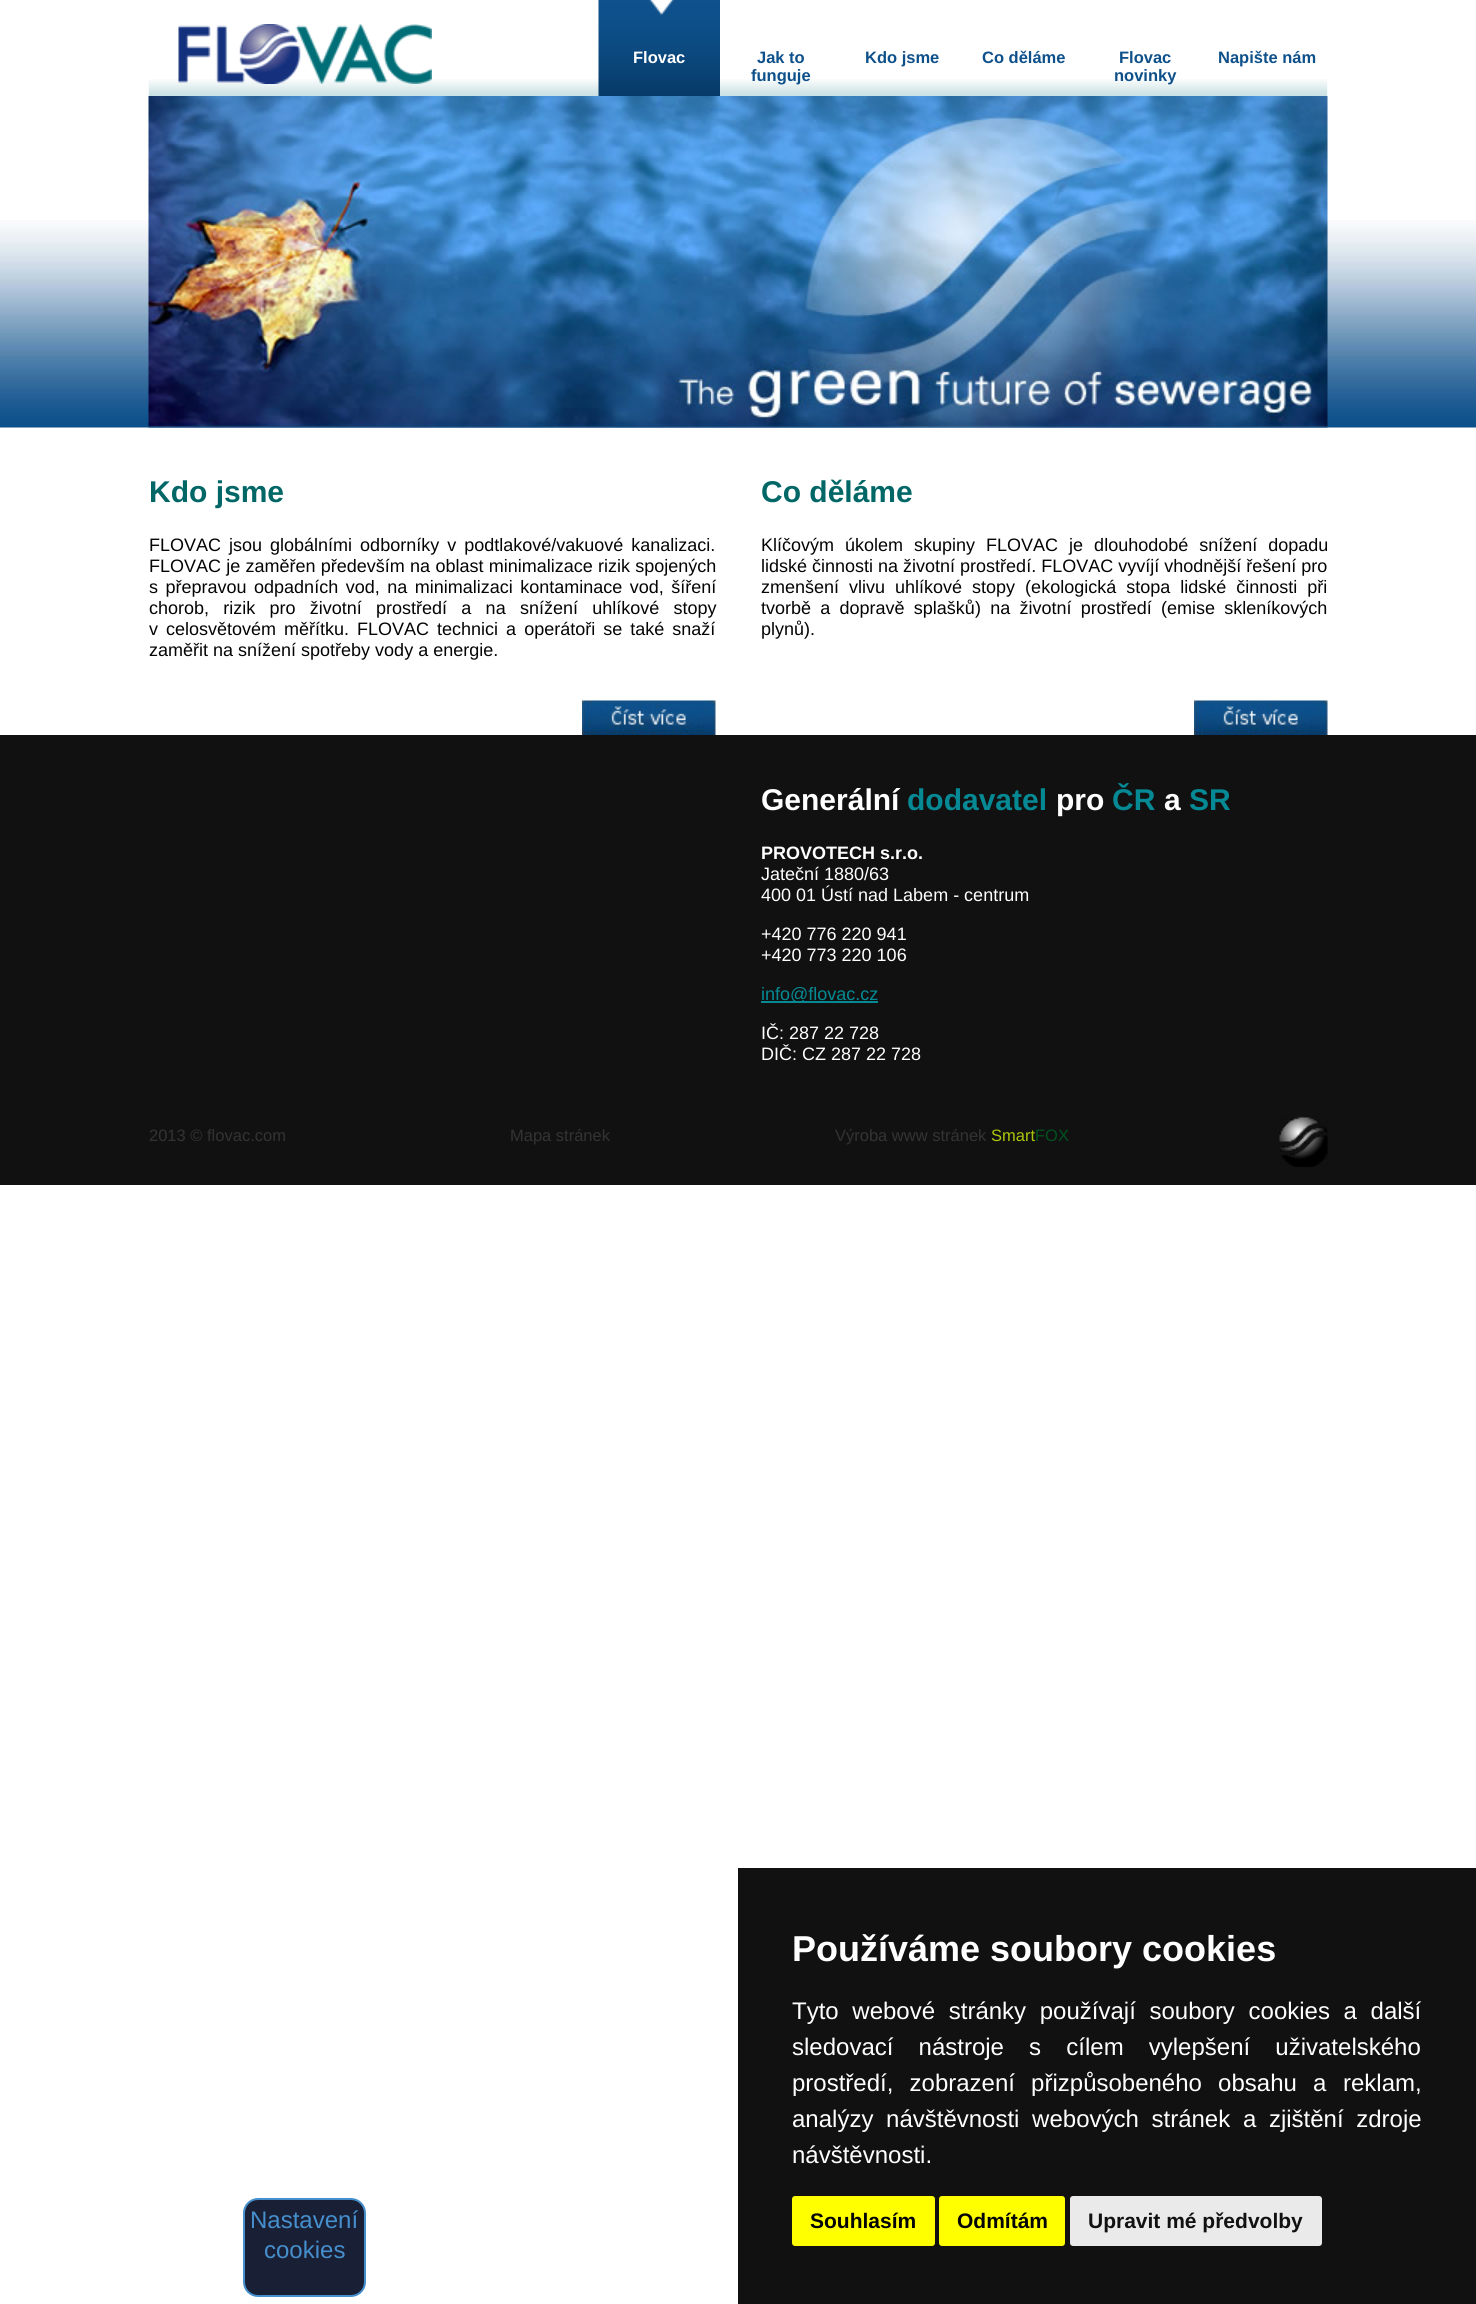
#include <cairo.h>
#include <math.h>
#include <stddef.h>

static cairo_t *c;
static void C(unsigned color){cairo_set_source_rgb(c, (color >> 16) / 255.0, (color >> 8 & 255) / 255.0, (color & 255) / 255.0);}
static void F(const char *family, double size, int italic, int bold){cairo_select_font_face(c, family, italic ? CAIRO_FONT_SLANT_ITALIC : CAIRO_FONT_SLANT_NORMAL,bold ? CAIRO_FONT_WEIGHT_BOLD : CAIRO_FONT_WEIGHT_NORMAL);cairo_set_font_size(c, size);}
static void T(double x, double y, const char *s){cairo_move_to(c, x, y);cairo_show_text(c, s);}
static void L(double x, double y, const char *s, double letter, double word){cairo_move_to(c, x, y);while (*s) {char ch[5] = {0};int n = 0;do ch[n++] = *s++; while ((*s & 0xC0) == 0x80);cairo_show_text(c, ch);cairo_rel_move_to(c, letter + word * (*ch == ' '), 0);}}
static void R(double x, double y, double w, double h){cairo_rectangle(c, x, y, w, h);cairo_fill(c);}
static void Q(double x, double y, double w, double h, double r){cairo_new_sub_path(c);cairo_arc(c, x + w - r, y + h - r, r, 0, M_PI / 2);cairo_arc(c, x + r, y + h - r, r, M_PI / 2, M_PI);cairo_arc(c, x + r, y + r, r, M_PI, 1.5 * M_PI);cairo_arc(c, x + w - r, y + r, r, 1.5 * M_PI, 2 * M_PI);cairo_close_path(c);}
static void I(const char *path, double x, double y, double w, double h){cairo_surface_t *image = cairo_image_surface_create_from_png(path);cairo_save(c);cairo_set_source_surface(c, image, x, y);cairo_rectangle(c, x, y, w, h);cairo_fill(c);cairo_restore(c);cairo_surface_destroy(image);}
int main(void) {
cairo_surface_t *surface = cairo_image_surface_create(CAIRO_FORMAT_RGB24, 1476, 2304);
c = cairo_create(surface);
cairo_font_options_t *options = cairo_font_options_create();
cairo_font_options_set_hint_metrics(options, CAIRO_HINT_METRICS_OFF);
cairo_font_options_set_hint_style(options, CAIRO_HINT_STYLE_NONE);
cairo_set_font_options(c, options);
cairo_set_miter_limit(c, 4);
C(0xffffff);
cairo_paint(c);
I("1.png",0,220,1476,208);
I("2.png",148,96,1180,332);
I("3.png",148,79,1180,17);
I("4.png",178,24,254,60);
I("5.png",598,0,122,96);
F("Liberation Sans",16.5,0,1);
C(0xffffff);
T(633,63,"Flovac");
C(0x0e508a);
T(757,63,"Jak to");
T(751,81,"funguje");
T(865,63,"Kdo jsme");
T(982,63,"Co děláme");
T(1119,63,"Flovac");
T(1114,81,"novinky");
T(1218,63,"Napište nám");
F("Liberation Sans",30,0,1);
C(0x006666);
T(149,502,"Kdo jsme");
F("Liberation Sans",18,0,0);
C(0x040404);
L(149,551,"FLOVAC jsou globálními odborníky v podtlakové/vakuové kanalizaci.",0,3);
L(149,572,"FLOVAC je zaměřen především na oblast minimalizace rizik spojených",0,.25);
L(149,593,"s přepravou odpadních vod, na minimalizaci kontaminace vod, šíření",0,2.5);
L(149,614,"chorob, rizik pro životní prostředí a na snížení uhlíkové stopy",0,9.25);
L(149,635,"v celosvětovém měřítku. FLOVAC technici a operátoři se také snaží",0,3);
T(149,656,"zaměřit na snížení spotřeby vody a energie.");
F("Liberation Sans",30,0,1);
C(0x006666);
T(761,502,"Co děláme");
F("Liberation Sans",18,0,0);
C(0x040404);
L(761,551,"Klíčovým úkolem skupiny FLOVAC je dlouhodobé snížení dopadu",0,6);
T(761,572,"lidské činnosti na životní prostředí. FLOVAC vyvíjí vhodnější řešení pro");
L(761,593,"zmenšení vlivu uhlíkové stopy (ekologická stopa lidské činnosti při",0,5);
L(761,614,"tvorbě a dopravě splašků) na životní prostředí (emise skleníkových",0,4.25);
T(761,635,"plynů).");
I("6.png",582,700,134,35);
I("7.png",1194,700,134,35);
C(0x111111);
R(0,735,1476,450);
F("Liberation Sans",30,0,1);
C(0xffffff);
T(761,810,"Generální");
C(0x058a95);
T(907,810,"dodavatel");
C(0xffffff);
T(1056,810,"pro");
C(0x058a95);
T(1112,810,"ČR");
C(0xffffff);
T(1164,810,"a");
C(0x058a95);
T(1189,810,"SR");
F("Liberation Sans",18,0,1);
C(0xffffff);
T(761,859,"PROVOTECH s.r.o.");
F("Liberation Sans",18,0,0);
T(761,880,"Jateční 1880/63");
T(761,901,"400 01 Ústí nad Labem - centrum");
T(761,940,"+420 776 220 941");
T(761,961,"+420 773 220 106");
C(0x058a95);
R(761,1001,117,2);
T(761,1000,"info@flovac.cz");
C(0xffffff);
T(761,1039,"IČ: 287 22 728");
T(761,1060,"DIČ: CZ 287 22 728");
I("8.png",1279,1116,49,51);
F("Liberation Sans",16.5,0,0);
C(0x333333);
T(149,1141,"2013 © flovac.com");
T(510,1141,"Mapa stránek");
T(835,1141,"Výroba www stránek");
C(0xacc60a);
T(991,1141,"Smart");
C(0x005220);
T(1035,1141,"FOX");
C(0x191f35);
Q(244,2199,121,97,14);
cairo_fill_preserve(c);
C(0x468fcd);
cairo_stroke(c);
F("Liberation Sans",24,0,0);
T(250,2228,"Nastavení");
T(264,2258,"cookies");
C(0x111111);
R(738,1868,738,436);
F("Liberation Sans",36,0,1);
C(0xffffff);
T(792,1961,"Používáme soubory cookies");
F("Liberation Sans",24,0,0);
L(792,2019,"Tyto webové stránky používají soubory cookies a další",0,7);
L(792,2055,"sledovací nástroje s cílem vylepšení uživatelského",0,18.5);
L(792,2091,"prostředí, zobrazení přizpůsobeného obsahu a",0,9.5);
T(1343,2091,"reklam,");
L(792,2127,"analýzy návštěvnosti webových stránek a zjištění zdroje",0,6);
T(792,2163,"návštěvnosti.");
C(0xffff00);
Q(792,2196,143,50,3);
cairo_fill(c);
F("Liberation Sans",21,0,1);
C(0x040404);
T(810,2228,"Souhlasím");
C(0xffff00);
Q(939,2196,126,50,3);
cairo_fill(c);
C(0x040404);
T(957,2228,"Odmítám");
C(0xeaeaea);
Q(1070,2196,252,50,3);
cairo_fill(c);
C(0x111111);
T(1088,2228,"Upravit mé předvolby");
cairo_surface_write_to_png(surface, "o.png");
cairo_font_options_destroy(options);
cairo_destroy(c);
cairo_surface_destroy(surface);
return 0;
}
